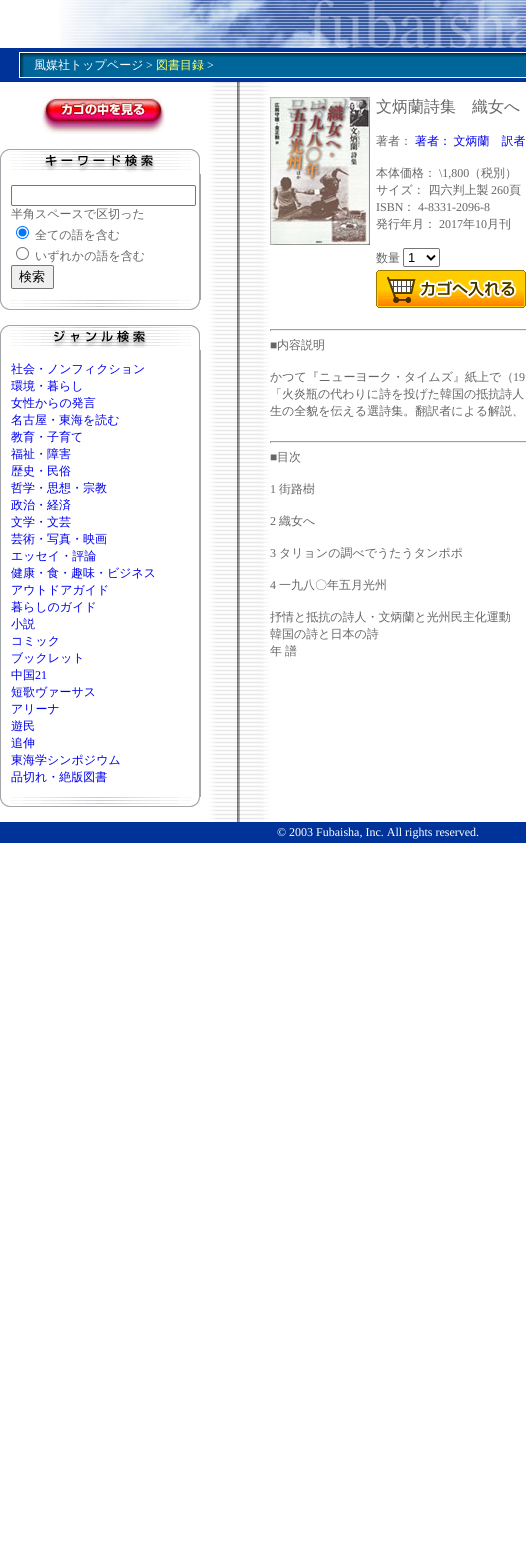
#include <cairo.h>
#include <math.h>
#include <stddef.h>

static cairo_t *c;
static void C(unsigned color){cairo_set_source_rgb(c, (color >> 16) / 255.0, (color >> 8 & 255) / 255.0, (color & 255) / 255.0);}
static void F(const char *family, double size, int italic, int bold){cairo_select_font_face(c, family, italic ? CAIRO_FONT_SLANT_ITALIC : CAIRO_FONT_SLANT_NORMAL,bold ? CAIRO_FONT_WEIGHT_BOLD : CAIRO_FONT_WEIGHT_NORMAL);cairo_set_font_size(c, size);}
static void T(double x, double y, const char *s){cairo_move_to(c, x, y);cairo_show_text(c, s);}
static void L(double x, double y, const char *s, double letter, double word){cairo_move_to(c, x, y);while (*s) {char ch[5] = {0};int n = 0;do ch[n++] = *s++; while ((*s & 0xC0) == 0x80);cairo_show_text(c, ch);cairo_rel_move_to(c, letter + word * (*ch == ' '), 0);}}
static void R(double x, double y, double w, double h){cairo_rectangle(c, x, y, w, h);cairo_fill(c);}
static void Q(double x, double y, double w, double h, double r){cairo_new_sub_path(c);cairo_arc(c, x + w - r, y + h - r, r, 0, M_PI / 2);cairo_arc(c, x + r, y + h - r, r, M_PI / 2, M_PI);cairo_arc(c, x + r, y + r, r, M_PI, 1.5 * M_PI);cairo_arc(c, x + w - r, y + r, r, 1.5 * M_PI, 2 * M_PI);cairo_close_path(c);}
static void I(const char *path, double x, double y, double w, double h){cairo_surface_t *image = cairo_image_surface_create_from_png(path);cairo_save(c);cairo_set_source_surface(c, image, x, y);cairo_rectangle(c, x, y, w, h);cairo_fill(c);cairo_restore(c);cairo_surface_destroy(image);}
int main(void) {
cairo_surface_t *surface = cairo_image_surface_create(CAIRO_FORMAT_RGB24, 526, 1561);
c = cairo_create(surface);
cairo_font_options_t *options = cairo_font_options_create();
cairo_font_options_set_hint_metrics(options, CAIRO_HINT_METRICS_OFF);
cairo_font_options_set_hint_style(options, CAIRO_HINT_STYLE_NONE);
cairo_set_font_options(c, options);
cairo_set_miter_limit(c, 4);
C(0xffffff);
cairo_paint(c);
I("1.png",60,0,466,48);
C(0x003399);
R(0,48,526,34);
I("2.png",19,52,15,26);
I("3.png",34,52,492,26);
F("WenQuanYi Zen Hei Medium",12,0,0);
C(0xffffff);
T(34,69,"風媒社トップページ");
F("Liberation Serif",12,0,0);
T(146,69,">");
F("WenQuanYi Zen Hei Medium",12,0,0);
C(0xffff66);
T(156,69,"図書目録");
F("Liberation Serif",12,0,0);
C(0xffffff);
T(207,69,">");
I("4.png",42,97,123,37);
I("5.png",0,149,200,25);
I("6.png",0,174,201,126);
Q(11.5,185.5,184,20,1.5);
C(0x767676);
cairo_set_line_width(c,1);
cairo_stroke(c);
F("WenQuanYi Zen Hei Medium",12,0,0);
C(0x666666);
T(11,218,"半角スペースで区切った");
cairo_new_path(c);
cairo_arc(c,22.5,232.5,6,0,2 * M_PI);
C(0x0075ff);
cairo_stroke(c);
cairo_arc(c,22.5,232.5,4,0,2 * M_PI);
cairo_fill(c);
C(0x666666);
T(35,239,"全ての語を含む");
cairo_new_path(c);
cairo_arc(c,22.5,253.5,6,0,2 * M_PI);
C(0x767676);
cairo_stroke(c);
C(0x666666);
T(35,260,"いずれかの語を含む");
C(0xefefef);
Q(11.5,265.5,42,23,1.5);
cairo_fill_preserve(c);
C(0x767676);
cairo_stroke(c);
F("WenQuanYi Zen Hei Medium",13,0,0);
C(0x000000);
T(19,281,"検索");
I("7.png",0,300,200,10);
I("8.png",0,325,200,25);
I("9.png",0,350,201,447);
F("WenQuanYi Zen Hei Medium",12,0,0);
C(0x0000ee);
T(11,373,"社会・ノンフィクション");
T(11,390,"環境・暮らし");
T(11,407,"女性からの発言");
T(11,424,"名古屋・東海を読む");
T(11,441,"教育・子育て");
T(11,458,"福祉・障害");
T(11,475,"歴史・民俗");
T(11,492,"哲学・思想・宗教");
T(11,509,"政治・経済");
T(11,526,"文学・文芸");
T(11,543,"芸術・写真・映画");
T(11,560,"エッセイ・評論");
T(11,577,"健康・食・趣味・ビジネス");
T(11,594,"アウトドアガイド");
T(11,611,"暮らしのガイド");
T(11,628,"小説");
T(11,645,"コミック");
T(11,662,"ブックレット");
T(11,679,"中国");
F("Liberation Serif",12,0,0);
T(35,679,"21");
F("WenQuanYi Zen Hei Medium",12,0,0);
T(11,696,"短歌ヴァーサス");
T(11,713,"アリーナ");
T(11,730,"遊民");
T(11,747,"追伸");
T(11,764,"東海学シンポジウム");
T(11,781,"品切れ・絶版図書");
I("7.png",0,797,200,10);
I("10.png",209,82,60,740);
I("11.png",270,97,100,148);
F("WenQuanYi Zen Hei Medium",16,0,0);
C(0x666666);
T(376,112,"文炳蘭詩集　織女へ");
F("WenQuanYi Zen Hei Medium",12,0,0);
T(376,145,"著者：");
C(0x0000ee);
L(415,145,"著者： 文炳蘭　訳者",0,-1);
C(0x666666);
T(376,177,"本体価格：");
F("Liberation Serif",12,0,0);
T(439,177,"\\1,800");
F("WenQuanYi Zen Hei Medium",12,0,0);
T(469,177,"（税別）");
T(376,194,"サイズ： 四六判上製");
F("Liberation Serif",12,0,0);
T(491,194,"260");
F("WenQuanYi Zen Hei Medium",12,0,0);
T(509,194,"頁");
F("Liberation Serif",12,0,0);
T(376,211,"ISBN");
F("WenQuanYi Zen Hei Medium",12,0,0);
T(403,211,"：");
F("Liberation Serif",12,0,0);
T(418,211,"4-8331-2096-8");
F("WenQuanYi Zen Hei Medium",12,0,0);
T(376,228,"発行年月：");
F("Liberation Serif",12,0,0);
T(439,228,"2017");
F("WenQuanYi Zen Hei Medium",12,0,0);
T(463,228,"年");
F("Liberation Serif",12,0,0);
T(475,228,"10");
F("WenQuanYi Zen Hei Medium",12,0,0);
T(487,228,"月刊");
T(376,262,"数量");
Q(403.5,248.5,36,18,1.5);
C(0x767676);
cairo_stroke(c);
cairo_new_path(c);
cairo_move_to(c,427,255.5);
cairo_line_to(c,431,259.5);
cairo_line_to(c,435,255.5);
C(0x000000);
cairo_set_line_width(c,2);
cairo_stroke(c);
F("Liberation Sans",13,0,0);
T(408,262,"1");
I("12.png",376,270,150,38);
C(0x9f9f9f);
R(270,329,256,1);
C(0xeeeeee);
R(270,330,256,1);
C(0x9f9f9f);
R(270,329,1,2);
F("Liberation Serif",12,0,0);
C(0x666666);
T(270,349,"■");
F("WenQuanYi Zen Hei Medium",12,0,0);
T(277,349,"内容説明");
T(270,381,"かつて『ニューヨーク・タイムズ』紙上で（");
F("Liberation Serif",12,0,0);
T(513,381,"19");
F("WenQuanYi Zen Hei Medium",12,0,0);
T(270,398,"「火炎瓶の代わりに詩を投げた韓国の抵抗詩人");
T(270,415,"生の全貌を伝える選詩集。翻訳者による解説、");
C(0x9f9f9f);
R(270,441,256,1);
C(0xeeeeee);
R(270,442,256,1);
C(0x9f9f9f);
R(270,441,1,2);
F("Liberation Serif",12,0,0);
C(0x666666);
T(270,461,"■");
F("WenQuanYi Zen Hei Medium",12,0,0);
T(277,461,"目次");
F("Liberation Serif",12,0,0);
T(270,493,"1");
F("WenQuanYi Zen Hei Medium",12,0,0);
T(279,493,"街路樹");
F("Liberation Serif",12,0,0);
T(270,525,"2");
F("WenQuanYi Zen Hei Medium",12,0,0);
T(279,525,"織女へ");
F("Liberation Serif",12,0,0);
T(270,557,"3");
F("WenQuanYi Zen Hei Medium",12,0,0);
T(279,557,"タリョンの調べでうたうタンポポ");
F("Liberation Serif",12,0,0);
T(270,589,"4");
F("WenQuanYi Zen Hei Medium",12,0,0);
T(279,589,"一九八〇年五月光州");
T(270,621,"抒情と抵抗の詩人・文炳蘭と光州民主化運動");
T(270,638,"韓国の詩と日本の詩");
T(270,655,"年");
T(285,655,"譜");
C(0x003399);
R(0,822,526,21);
F("Liberation Serif",12,0,0);
C(0xffffff);
T(277,836,"© 2003 Fubaisha, Inc. All rights reserved.");
cairo_surface_write_to_png(surface, "o.png");
cairo_font_options_destroy(options);
cairo_destroy(c);
cairo_surface_destroy(surface);
return 0;
}
